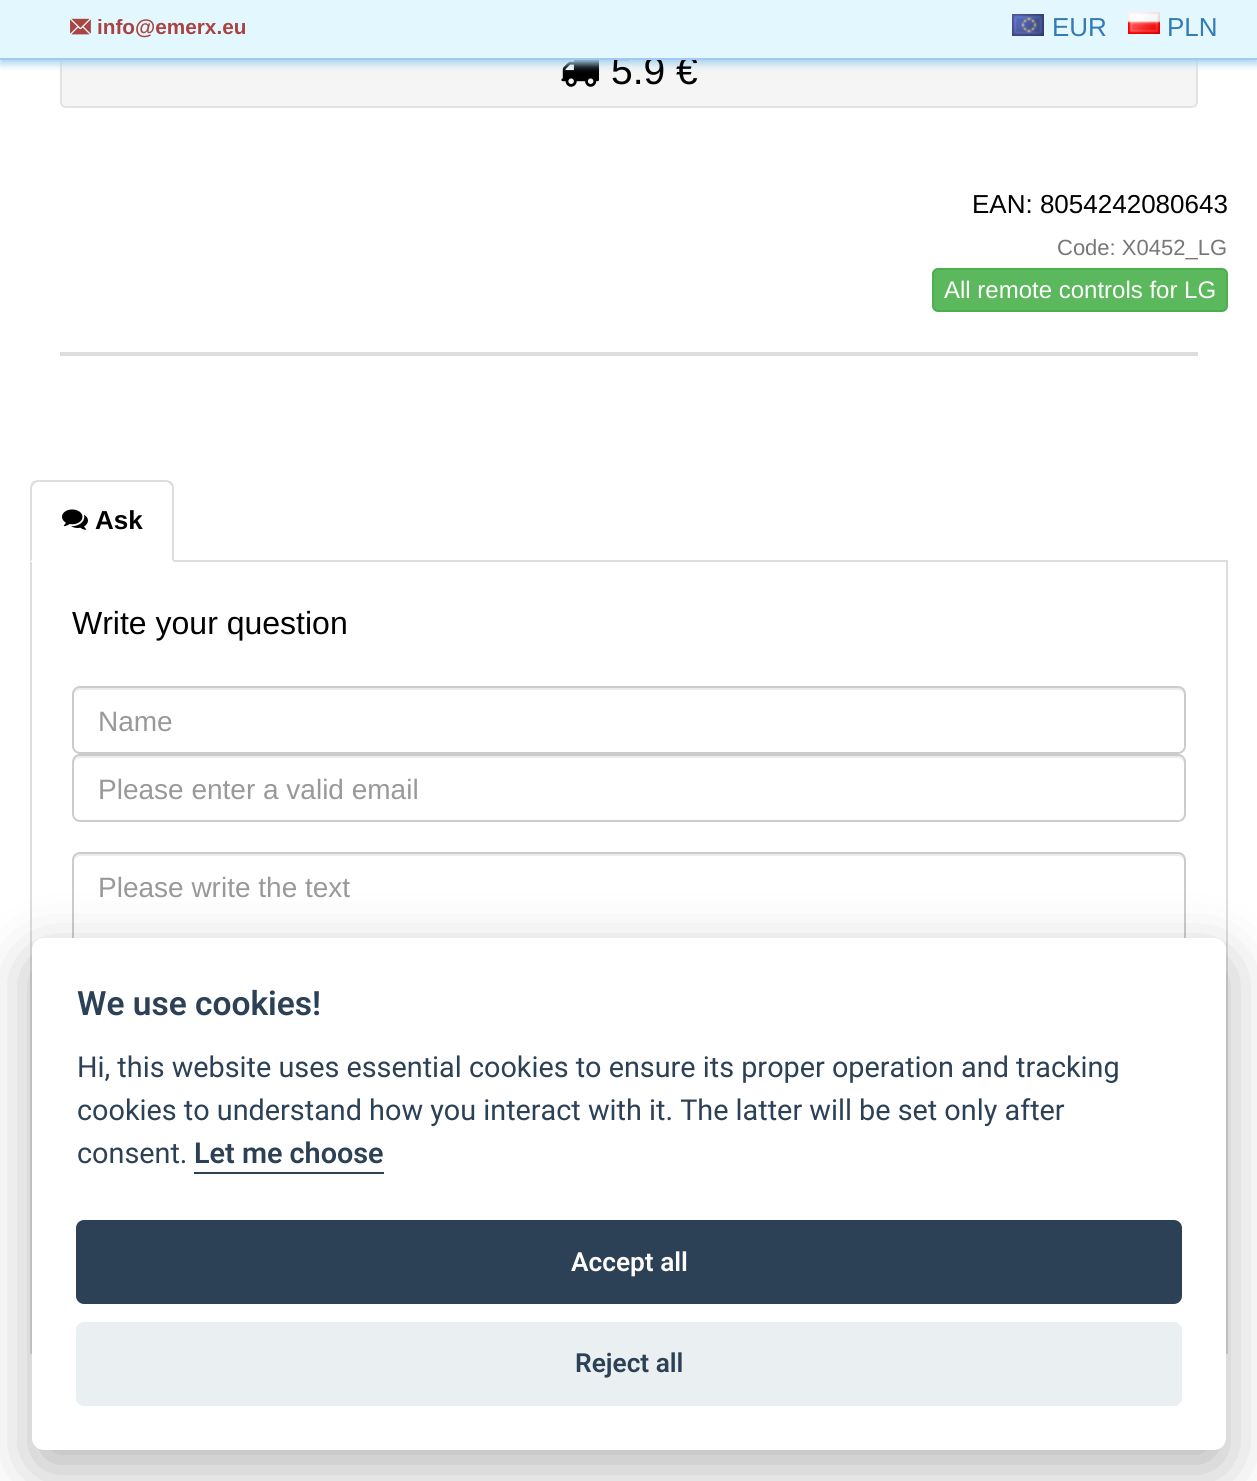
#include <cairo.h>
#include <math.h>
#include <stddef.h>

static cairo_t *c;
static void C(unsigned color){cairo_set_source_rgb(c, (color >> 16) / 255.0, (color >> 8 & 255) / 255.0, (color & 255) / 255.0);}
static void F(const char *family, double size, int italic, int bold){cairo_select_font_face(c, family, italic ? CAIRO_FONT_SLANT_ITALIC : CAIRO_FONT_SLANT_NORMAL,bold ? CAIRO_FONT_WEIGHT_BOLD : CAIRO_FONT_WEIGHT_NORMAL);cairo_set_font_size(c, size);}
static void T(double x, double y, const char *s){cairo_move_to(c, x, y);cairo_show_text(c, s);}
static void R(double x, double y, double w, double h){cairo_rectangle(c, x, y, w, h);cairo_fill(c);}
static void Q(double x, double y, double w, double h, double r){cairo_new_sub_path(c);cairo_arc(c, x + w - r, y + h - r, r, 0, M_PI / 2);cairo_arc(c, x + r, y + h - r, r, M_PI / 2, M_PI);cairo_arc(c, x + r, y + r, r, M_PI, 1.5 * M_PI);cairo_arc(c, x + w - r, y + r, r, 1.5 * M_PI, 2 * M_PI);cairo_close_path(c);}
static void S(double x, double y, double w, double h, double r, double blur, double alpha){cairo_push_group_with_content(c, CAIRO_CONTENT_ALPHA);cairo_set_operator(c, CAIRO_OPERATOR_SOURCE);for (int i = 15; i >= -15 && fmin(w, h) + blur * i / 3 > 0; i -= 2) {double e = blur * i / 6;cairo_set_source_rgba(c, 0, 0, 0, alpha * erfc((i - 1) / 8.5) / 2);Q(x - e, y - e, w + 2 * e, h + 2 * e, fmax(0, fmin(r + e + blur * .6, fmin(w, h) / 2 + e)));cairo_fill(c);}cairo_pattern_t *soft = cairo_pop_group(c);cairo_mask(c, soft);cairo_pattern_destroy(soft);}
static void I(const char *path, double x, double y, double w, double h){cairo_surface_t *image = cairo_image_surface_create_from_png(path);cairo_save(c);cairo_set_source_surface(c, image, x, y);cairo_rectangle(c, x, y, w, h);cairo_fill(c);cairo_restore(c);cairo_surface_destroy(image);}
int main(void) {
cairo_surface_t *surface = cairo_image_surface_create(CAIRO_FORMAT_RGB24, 1257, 1481);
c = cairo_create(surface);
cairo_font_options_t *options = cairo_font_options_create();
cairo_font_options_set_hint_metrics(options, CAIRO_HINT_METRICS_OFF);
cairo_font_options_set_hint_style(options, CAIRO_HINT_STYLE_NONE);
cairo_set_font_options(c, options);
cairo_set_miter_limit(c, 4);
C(0xffffff);
cairo_paint(c);
C(0xf5f5f5);
Q(61,-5,1136,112,5);
cairo_fill_preserve(c);
C(0xe3e3e3);
cairo_stroke(c);
I("4.png",561,60,38,27);
C(0xa6d4ee);
S(0,4,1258,60,0,4,1);
F("Liberation Sans",39,0,0);
C(0x000000);
T(611,84,"5.9 €");
C(0xe2f8fe);
R(0,0,1257,58);
C(0xa2c9f1);
R(0,58,1257,2);
I("1.png",70,18,21,17);
F("Liberation Sans",20.75,0,1);
C(0xa94442);
T(97,34,"info@emerx.eu");
I("2.png",1012,14,32,22);
F("Liberation Sans",26,0,0);
C(0x337ab7);
T(1052,36,"EUR");
I("3.png",1128,12,32,22);
T(1167,36,"PLN");
C(0x000000);
T(972,213,"EAN: 8054242080643");
F("Liberation Sans",22,0,0);
C(0x777777);
T(1057,255,"Code: X0452_LG");
C(0x5cb85c);
Q(933,269,294,42,5);
cairo_fill_preserve(c);
C(0x4cae4c);
cairo_stroke(c);
F("Liberation Sans",24,0,0);
C(0xffffff);
T(944,298,"All remote controls for LG");
C(0xdddddd);
R(60,352,1138,4);
R(174,560,1054,2);
cairo_new_path(c);
cairo_move_to(c,38,480);
cairo_curve_to(c,36,480,34,481,32,482);
cairo_line_to(c,34,484);
cairo_line_to(c,37,482);
cairo_line_to(c,167,482);
cairo_line_to(c,170,484);
cairo_line_to(c,172,482);
cairo_curve_to(c,170,481,168,480,166,480);
cairo_close_path(c);
cairo_fill(c);
cairo_new_path(c);
cairo_move_to(c,174,562);
cairo_line_to(c,174,488);
cairo_curve_to(c,174,486,173,484,172,482);
cairo_line_to(c,170,484);
cairo_line_to(c,172,487);
cairo_line_to(c,172,560);
cairo_close_path(c);
cairo_fill(c);
cairo_new_path(c);
cairo_move_to(c,30,562);
cairo_line_to(c,32,560);
cairo_line_to(c,32,487);
cairo_line_to(c,34,484);
cairo_line_to(c,32,482);
cairo_curve_to(c,31,484,30,486,30,488);
cairo_close_path(c);
cairo_fill(c);
I("5.png",62,509,26,21);
F("Liberation Sans",26,0,1);
C(0x000000);
T(95,529,"Ask");
C(0xdddddd);
R(1226,562,2,792);
R(30,562,2,792);
F("Liberation Sans",32,0,0);
C(0x000000);
T(72,634,"Write your question");
C(0xececec);
cairo_new_path(c);
cairo_move_to(c,80,690);
cairo_line_to(c,1178,690);
cairo_curve_to(c,1181,690,1184,693,1184,696);
cairo_line_to(c,1184,694);
cairo_curve_to(c,1184,691,1181,688,1178,688);
cairo_line_to(c,80,688);
cairo_curve_to(c,77,688,74,691,74,694);
cairo_line_to(c,74,696);
cairo_curve_to(c,74,693,77,690,80,690);
cairo_close_path(c);
cairo_fill(c);
Q(73,687,1112,66,7);
C(0xcccccc);
cairo_stroke(c);
F("Liberation Sans",28,0,0);
C(0x999999);
T(98,731,"Name");
C(0xececec);
cairo_new_path(c);
cairo_move_to(c,80,758);
cairo_line_to(c,1178,758);
cairo_curve_to(c,1181,758,1184,761,1184,764);
cairo_line_to(c,1184,762);
cairo_curve_to(c,1184,759,1181,756,1178,756);
cairo_line_to(c,80,756);
cairo_curve_to(c,77,756,74,759,74,762);
cairo_line_to(c,74,764);
cairo_curve_to(c,74,761,77,758,80,758);
cairo_close_path(c);
cairo_fill(c);
Q(73,755,1112,66,7);
C(0xcccccc);
cairo_stroke(c);
C(0x999999);
T(98,799,"Please enter a valid email");
C(0xececec);
cairo_new_path(c);
cairo_move_to(c,80,856);
cairo_line_to(c,1178,856);
cairo_curve_to(c,1181,856,1184,859,1184,862);
cairo_line_to(c,1184,860);
cairo_curve_to(c,1184,857,1181,854,1178,854);
cairo_line_to(c,80,854);
cairo_curve_to(c,77,854,74,857,74,860);
cairo_line_to(c,74,862);
cairo_curve_to(c,74,859,77,856,80,856);
cairo_close_path(c);
cairo_fill(c);
Q(73,853,1112,146,7);
C(0xcccccc);
cairo_stroke(c);
C(0x999999);
T(98,897,"Please write the text");
C(0x020203);
S(32,958,1194,512,12,30,.28);
C(0xffffff);
Q(32,938,1194,512,12);
cairo_fill(c);
F("Roboto SemiBold",33.5,0,0);
C(0x2d4156);
T(77,1015,"We use cookies!");
F("Roboto",28.8,0,0);
T(77,1077,"Hi, this website uses essential cookies to ensure its proper operation and tracking");
T(77,1120,"cookies to understand how you interact with it. The latter will be set only after");
T(77,1163,"consent.");
F("Roboto SemiBold",28.8,0,0);
T(194,1163,"Let me choose");
R(194,1172,190,2);
Q(76,1220,1106,84,8);
cairo_fill(c);
F("Roboto SemiBold",26.25,0,0);
C(0xffffff);
T(571,1271,"Accept all");
C(0xeaeff2);
Q(76,1322,1106,84,8);
cairo_fill(c);
C(0x2d4156);
T(575,1372,"Reject all");
cairo_surface_write_to_png(surface, "o.png");
cairo_font_options_destroy(options);
cairo_destroy(c);
cairo_surface_destroy(surface);
return 0;
}
